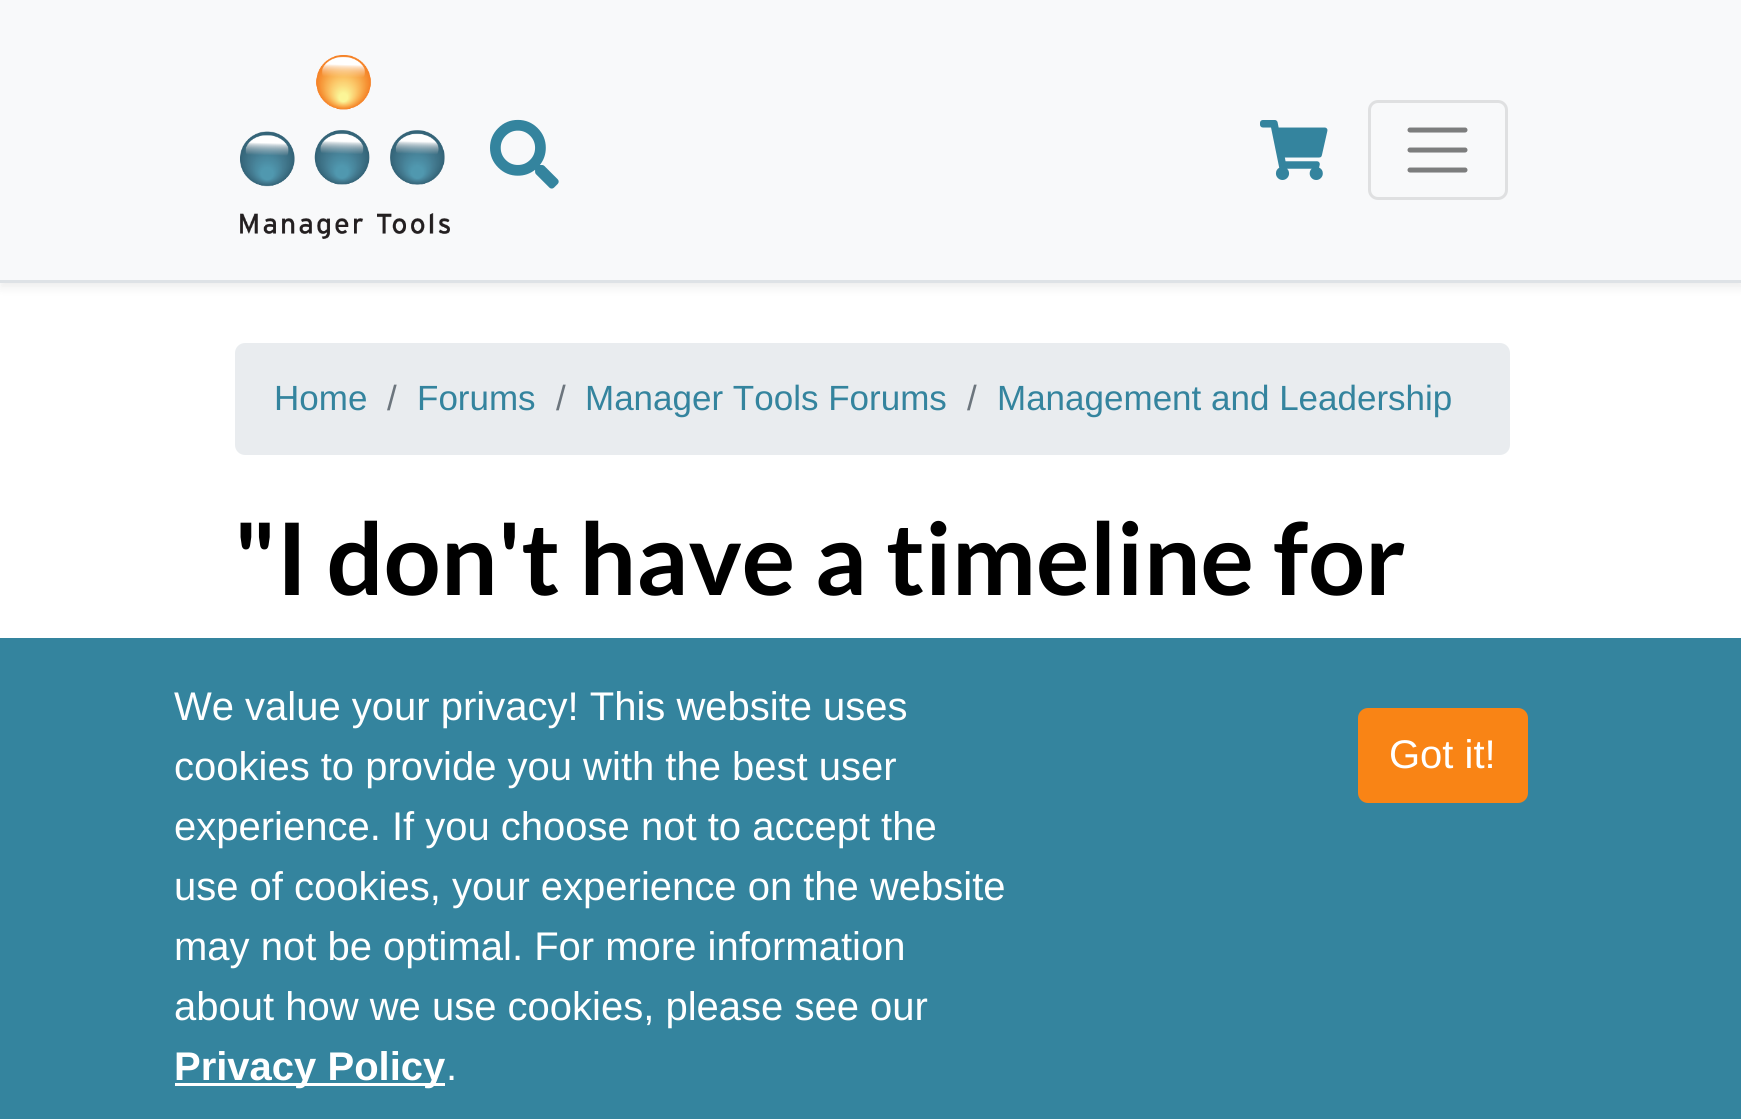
#include <cairo.h>
#include <math.h>
#include <stddef.h>

static cairo_t *c;
static void C(unsigned color){cairo_set_source_rgb(c, (color >> 16) / 255.0, (color >> 8 & 255) / 255.0, (color & 255) / 255.0);}
static void F(const char *family, double size, int italic, int bold){cairo_select_font_face(c, family, italic ? CAIRO_FONT_SLANT_ITALIC : CAIRO_FONT_SLANT_NORMAL,bold ? CAIRO_FONT_WEIGHT_BOLD : CAIRO_FONT_WEIGHT_NORMAL);cairo_set_font_size(c, size);}
static void T(double x, double y, const char *s){cairo_move_to(c, x, y);cairo_show_text(c, s);}
static void R(double x, double y, double w, double h){cairo_rectangle(c, x, y, w, h);cairo_fill(c);}
static void Q(double x, double y, double w, double h, double r){cairo_new_sub_path(c);cairo_arc(c, x + w - r, y + h - r, r, 0, M_PI / 2);cairo_arc(c, x + r, y + h - r, r, M_PI / 2, M_PI);cairo_arc(c, x + r, y + r, r, M_PI, 1.5 * M_PI);cairo_arc(c, x + w - r, y + r, r, 1.5 * M_PI, 2 * M_PI);cairo_close_path(c);}
static void S(double x, double y, double w, double h, double r, double blur, double alpha){cairo_push_group_with_content(c, CAIRO_CONTENT_ALPHA);cairo_set_operator(c, CAIRO_OPERATOR_SOURCE);for (int i = 15; i >= -15 && fmin(w, h) + blur * i / 3 > 0; i -= 2) {double e = blur * i / 6;cairo_set_source_rgba(c, 0, 0, 0, alpha * erfc((i - 1) / 8.5) / 2);Q(x - e, y - e, w + 2 * e, h + 2 * e, fmax(0, fmin(r + e + blur * .6, fmin(w, h) / 2 + e)));cairo_fill(c);}cairo_pattern_t *soft = cairo_pop_group(c);cairo_mask(c, soft);cairo_pattern_destroy(soft);}
static void I(const char *path, double x, double y, double w, double h){cairo_surface_t *image = cairo_image_surface_create_from_png(path);cairo_save(c);cairo_set_source_surface(c, image, x, y);cairo_rectangle(c, x, y, w, h);cairo_fill(c);cairo_restore(c);cairo_surface_destroy(image);}
int main(void) {
cairo_surface_t *surface = cairo_image_surface_create(CAIRO_FORMAT_RGB24, 1741, 1119);
c = cairo_create(surface);
cairo_font_options_t *options = cairo_font_options_create();
cairo_font_options_set_hint_metrics(options, CAIRO_HINT_METRICS_OFF);
cairo_font_options_set_hint_style(options, CAIRO_HINT_STYLE_NONE);
cairo_set_font_options(c, options);
cairo_set_miter_limit(c, 4);
C(0xffffff);
cairo_paint(c);
C(0x000000);
S(0,5,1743,283,0,5,.07);
C(0xf8f9fa);
R(0,0,1741,280);
C(0xdee2e6);
R(0,280,1741,3);
I("1.png",240,55,210,184);
I("2.png",490,119,69,70);
I("3.png",1260,120,68,60);
Q(1369.5,101.5,137,97,8.5);
C(0xdfe0e1);
cairo_set_line_width(c,3);
cairo_stroke(c);
cairo_new_path(c);
cairo_move_to(c,1410,130);
cairo_line_to(c,1465,130);
cairo_move_to(c,1410,150);
cairo_line_to(c,1465,150);
cairo_move_to(c,1410,170);
cairo_line_to(c,1465,170);
C(0x7c7d7d);
cairo_set_line_width(c,5);
cairo_set_line_cap(c,CAIRO_LINE_CAP_ROUND);
cairo_stroke(c);
C(0xe9ecef);
Q(235,343,1275,112,10);
cairo_fill(c);
F("Liberation Sans",35,0,0);
C(0x34849e);
T(274,410,"Home");
C(0x6c757d);
T(387,410,"/");
C(0x34849e);
T(417,410,"Forums");
C(0x6c757d);
T(556,410,"/");
C(0x34849e);
T(585,410,"Manager Tools Forums");
C(0x6c757d);
T(967,410,"/");
C(0x34849e);
T(997,410,"Management and Leadership");
F("Lato",100,0,1);
C(0x000000);
T(234,595,"\"I don't have a timeline for");
C(0x34849e);
R(0,638,1741,481);
F("Liberation Sans",40,0,0);
C(0xffffff);
T(174,720,"We value your privacy! This website uses");
T(174,780,"cookies to provide you with the best user");
T(174,840,"experience. If you choose not to accept the");
T(174,900,"use of cookies, your experience on the website");
T(174,960,"may not be optimal. For more information");
T(174,1020,"about how we use cookies, please see our");
R(175,1083,270,3);
F("Liberation Sans",40,0,1);
T(174,1080,"Privacy Policy");
F("Liberation Sans",40,0,0);
T(446,1080,".");
C(0xf98415);
Q(1358,708,170,95,10);
cairo_fill(c);
C(0xffffff);
T(1389,768,"Got it!");
cairo_surface_write_to_png(surface, "o.png");
cairo_font_options_destroy(options);
cairo_destroy(c);
cairo_surface_destroy(surface);
return 0;
}
